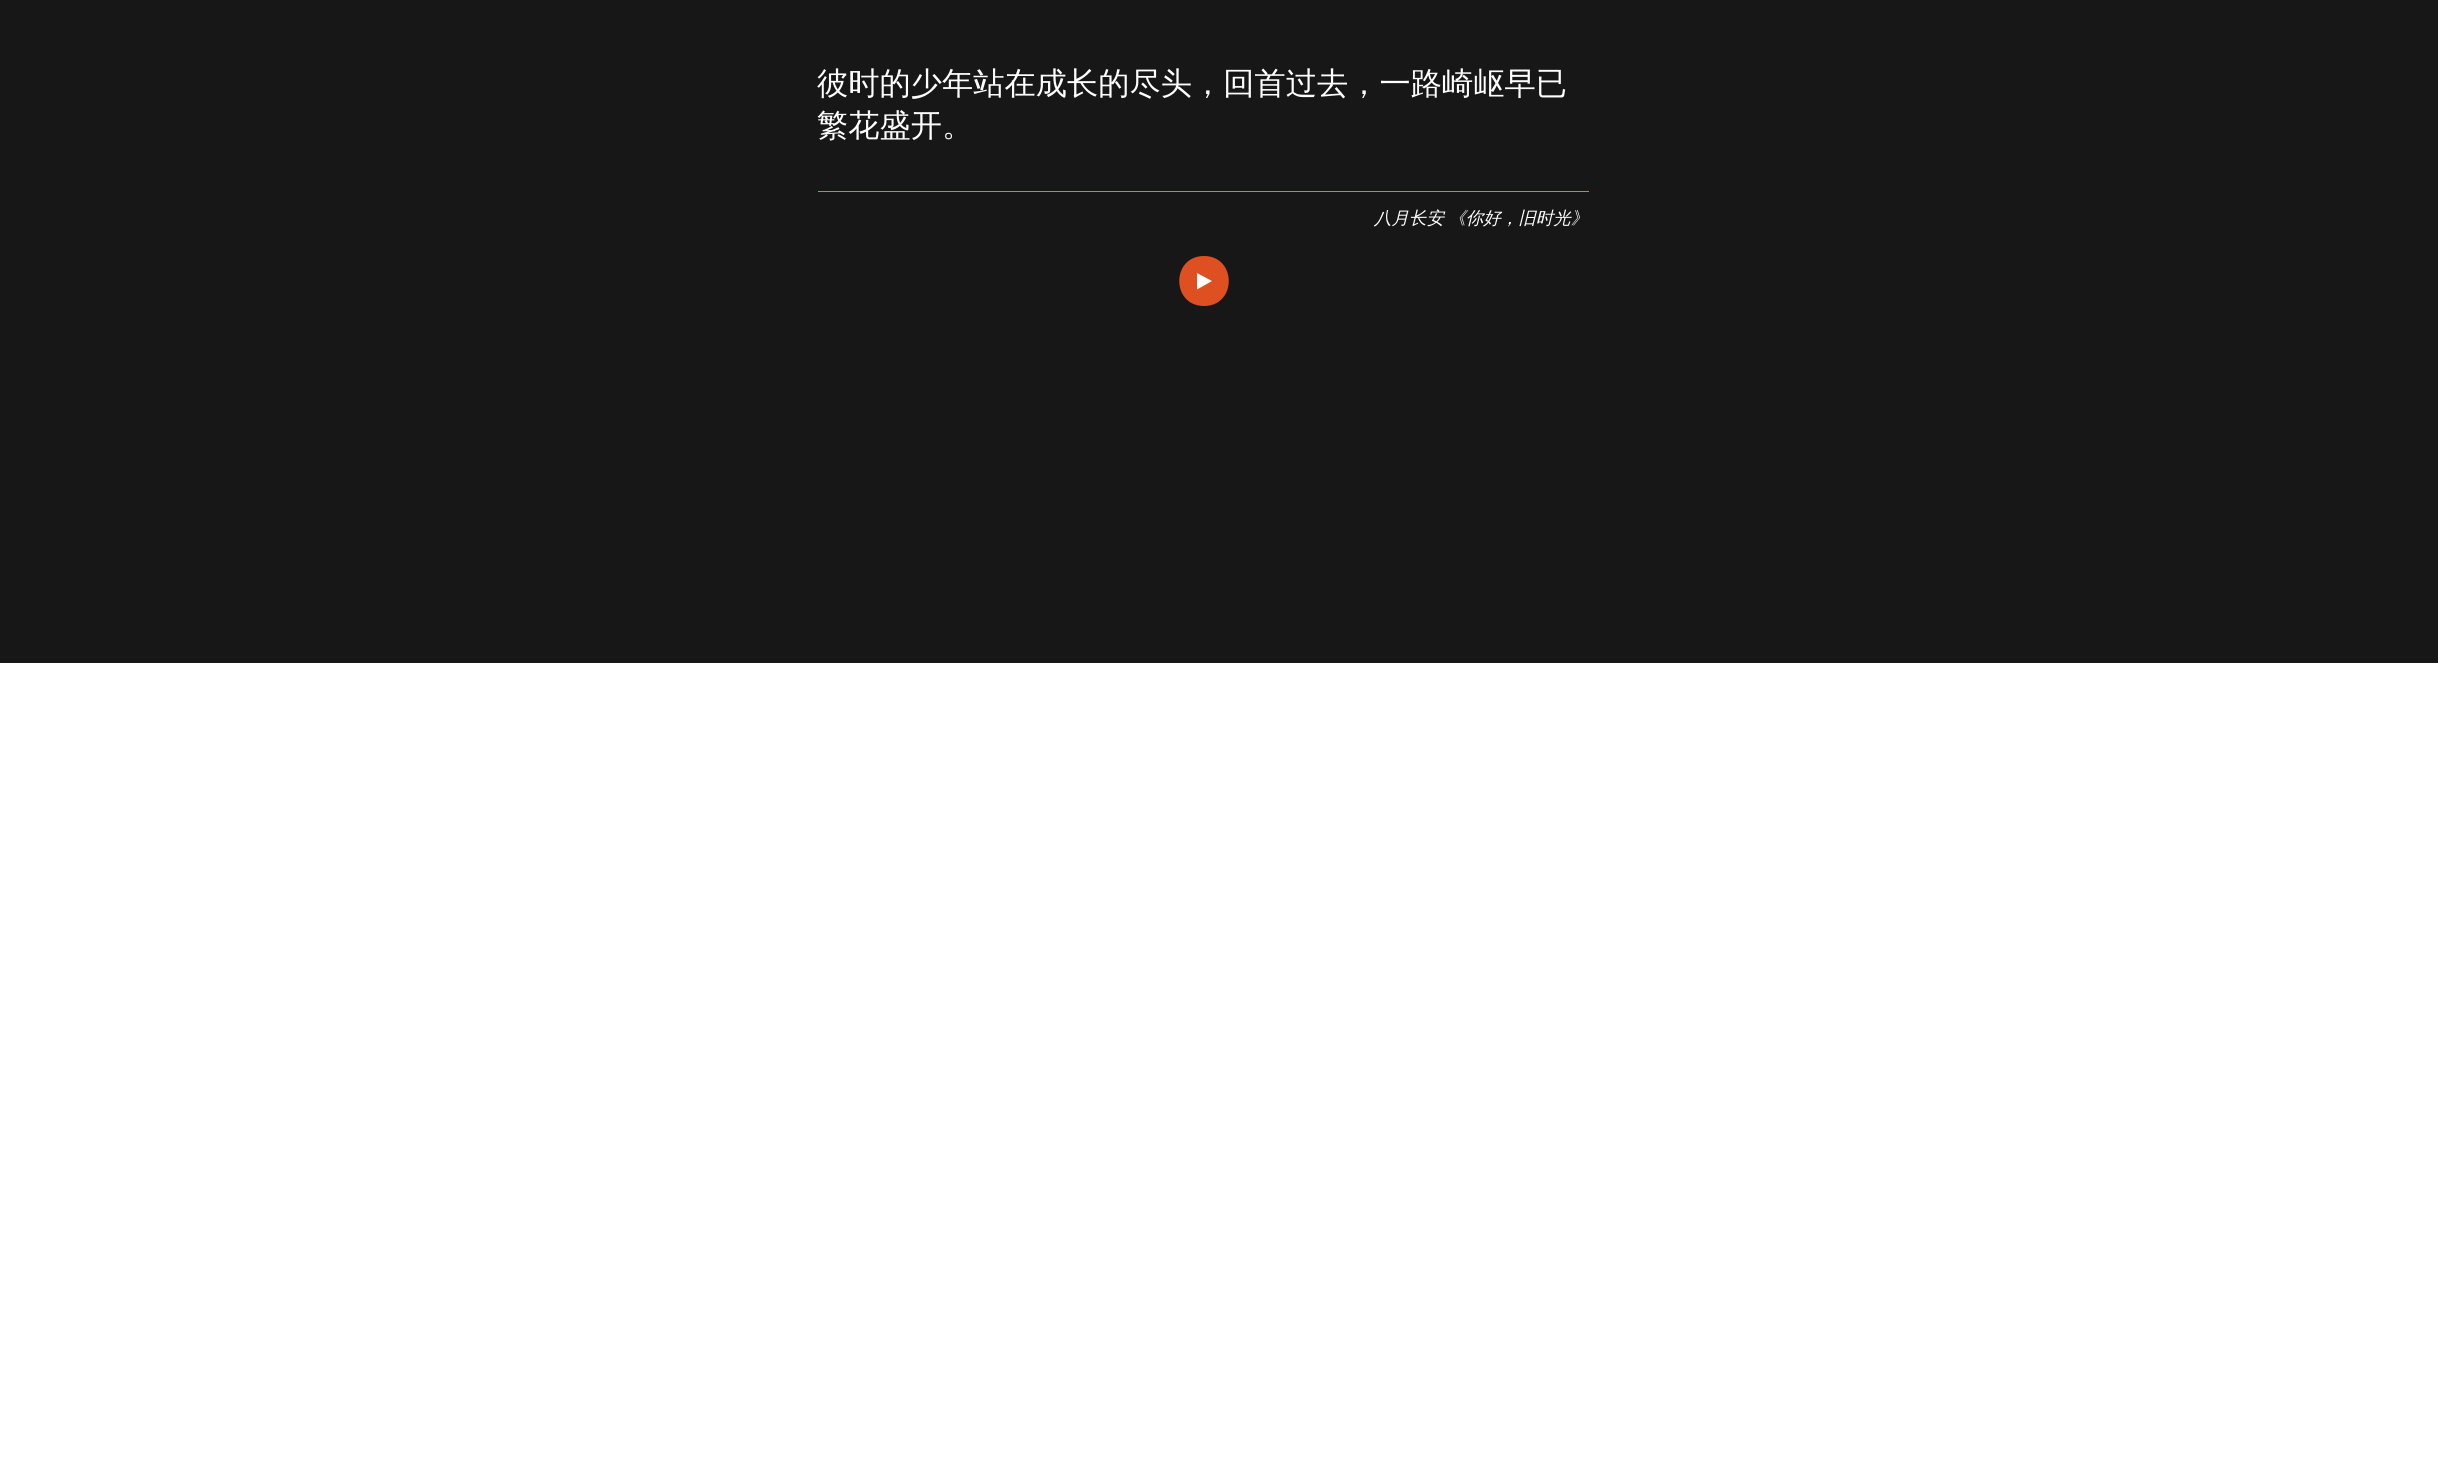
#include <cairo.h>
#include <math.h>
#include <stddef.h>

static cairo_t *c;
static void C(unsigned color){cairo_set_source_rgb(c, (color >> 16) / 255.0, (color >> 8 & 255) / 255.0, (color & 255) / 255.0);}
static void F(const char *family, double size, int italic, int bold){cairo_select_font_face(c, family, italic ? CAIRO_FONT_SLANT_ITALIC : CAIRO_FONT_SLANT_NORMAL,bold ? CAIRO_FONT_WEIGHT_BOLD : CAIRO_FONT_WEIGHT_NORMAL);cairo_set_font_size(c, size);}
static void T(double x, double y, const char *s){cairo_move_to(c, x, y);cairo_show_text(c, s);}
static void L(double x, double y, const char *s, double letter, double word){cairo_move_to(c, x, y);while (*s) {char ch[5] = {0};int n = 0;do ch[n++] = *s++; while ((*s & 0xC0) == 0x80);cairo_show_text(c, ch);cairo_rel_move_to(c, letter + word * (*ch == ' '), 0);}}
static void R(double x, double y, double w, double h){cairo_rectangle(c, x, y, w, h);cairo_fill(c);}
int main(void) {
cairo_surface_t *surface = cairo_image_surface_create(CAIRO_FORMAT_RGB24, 2438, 1482);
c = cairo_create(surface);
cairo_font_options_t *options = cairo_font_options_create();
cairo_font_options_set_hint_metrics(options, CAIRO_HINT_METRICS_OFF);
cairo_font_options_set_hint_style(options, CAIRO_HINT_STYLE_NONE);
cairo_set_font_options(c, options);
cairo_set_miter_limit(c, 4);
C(0xffffff);
cairo_paint(c);
C(0x171717);
R(0,0,2438,663);
F("WenQuanYi Zen Hei Medium",31.25,0,0);
C(0xffffff);
T(817,94,"彼时的少年站在成长的尽头，回首过去，一路崎岖早已");
T(817,136,"繁花盛开。");
C(0xff6161);
R(818,191,771,1);
F("WenQuanYi Zen Hei Medium",17.5,1,0);
C(0xffffff);
L(1374,224,"八月长安 《你好，旧时光》",0,-1);
C(0xde5021);
cairo_new_path(c);
cairo_move_to(c,1204,256);
cairo_curve_to(c,1171,256,1171,306,1204,306);
cairo_curve_to(c,1237,306,1237,256,1204,256);
cairo_fill(c);
C(0xffffff);
cairo_new_path(c);
cairo_move_to(c,1197,289.5);
cairo_line_to(c,1197,273);
cairo_line_to(c,1212,281);
cairo_close_path(c);
cairo_fill(c);
cairo_surface_write_to_png(surface, "o.png");
cairo_font_options_destroy(options);
cairo_destroy(c);
cairo_surface_destroy(surface);
return 0;
}
